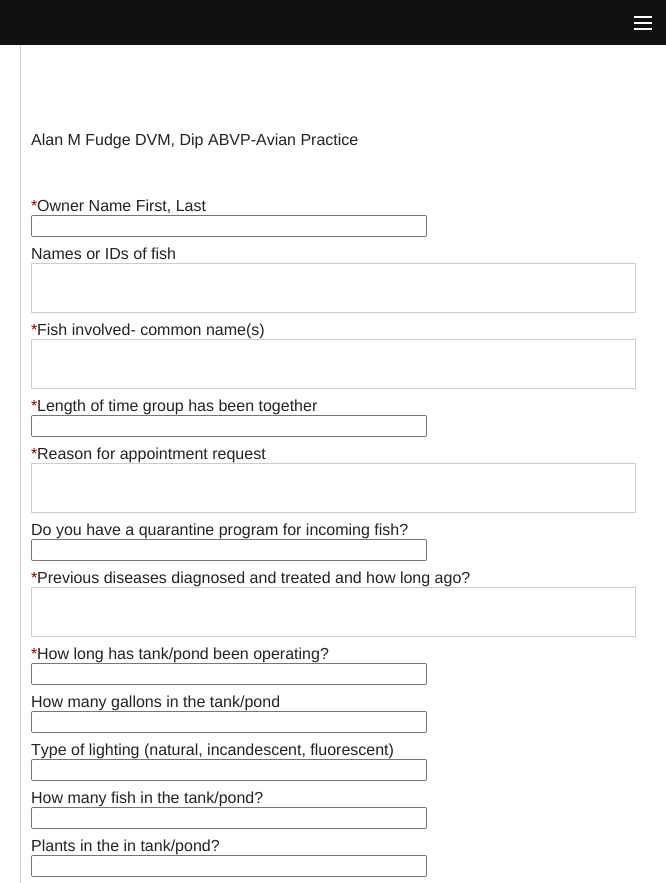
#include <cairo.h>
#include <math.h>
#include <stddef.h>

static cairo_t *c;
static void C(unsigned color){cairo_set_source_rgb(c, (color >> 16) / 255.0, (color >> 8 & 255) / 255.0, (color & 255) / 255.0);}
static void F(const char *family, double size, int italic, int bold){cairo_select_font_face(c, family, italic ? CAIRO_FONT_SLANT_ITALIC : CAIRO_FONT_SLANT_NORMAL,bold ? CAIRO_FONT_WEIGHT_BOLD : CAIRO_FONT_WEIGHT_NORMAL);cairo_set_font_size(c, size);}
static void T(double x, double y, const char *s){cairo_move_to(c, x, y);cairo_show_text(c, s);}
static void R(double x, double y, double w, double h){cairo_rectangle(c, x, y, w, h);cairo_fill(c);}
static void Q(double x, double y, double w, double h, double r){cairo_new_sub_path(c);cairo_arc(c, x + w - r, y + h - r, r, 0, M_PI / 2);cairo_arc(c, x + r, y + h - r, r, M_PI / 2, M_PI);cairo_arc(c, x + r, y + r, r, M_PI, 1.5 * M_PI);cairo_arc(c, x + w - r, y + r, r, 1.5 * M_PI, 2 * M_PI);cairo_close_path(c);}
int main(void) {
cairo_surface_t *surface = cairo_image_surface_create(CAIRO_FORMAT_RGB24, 666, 883);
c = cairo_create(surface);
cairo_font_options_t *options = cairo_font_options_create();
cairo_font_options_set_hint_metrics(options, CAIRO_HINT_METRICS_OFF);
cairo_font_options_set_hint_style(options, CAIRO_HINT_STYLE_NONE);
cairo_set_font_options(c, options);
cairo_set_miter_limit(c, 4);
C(0xffffff);
cairo_paint(c);
C(0x111111);
R(0,0,666,45);
C(0xffffff);
R(634,28,18,2);
R(634,22,18,2);
R(634,16,18,2);
C(0xcccccc);
R(20,45,1,838);
F("Liberation Sans",16,0,0);
C(0x222222);
T(31,145,"Alan M Fudge DVM, Dip ABVP-Avian Practice");
C(0x8b0000);
T(31,211,"*");
C(0x222222);
T(37,211,"Owner Name First, Last");
Q(31.5,215.5,395,21,1.5);
C(0x767676);
cairo_set_line_width(c,1);
cairo_stroke(c);
C(0x222222);
T(31,259,"Names or IDs of fish");
cairo_rectangle(c,31.5,263.5,604,49);
C(0xcccccc);
cairo_stroke(c);
C(0x8b0000);
T(31,335,"*");
C(0x222222);
T(37,335,"Fish involved- common name(s)");
cairo_rectangle(c,31.5,339.5,604,49);
C(0xcccccc);
cairo_stroke(c);
C(0x8b0000);
T(31,411,"*");
C(0x222222);
T(37,411,"Length of time group has been together");
Q(31.5,415.5,395,21,1.5);
C(0x767676);
cairo_stroke(c);
C(0x8b0000);
T(31,459,"*");
C(0x222222);
T(37,459,"Reason for appointment request");
cairo_rectangle(c,31.5,463.5,604,49);
C(0xcccccc);
cairo_stroke(c);
C(0x222222);
T(31,535,"Do you have a quarantine program for incoming fish?");
Q(31.5,539.5,395,21,1.5);
C(0x767676);
cairo_stroke(c);
C(0x8b0000);
T(31,583,"*");
C(0x222222);
T(37,583,"Previous diseases diagnosed and treated and how long ago?");
cairo_rectangle(c,31.5,587.5,604,49);
C(0xcccccc);
cairo_stroke(c);
C(0x8b0000);
T(31,659,"*");
C(0x222222);
T(37,659,"How long has tank/pond been operating?");
Q(31.5,663.5,395,21,1.5);
C(0x767676);
cairo_stroke(c);
C(0x222222);
T(31,707,"How many gallons in the tank/pond");
Q(31.5,711.5,395,21,1.5);
C(0x767676);
cairo_stroke(c);
C(0x222222);
T(31,755,"Type of lighting (natural, incandescent, fluorescent)");
Q(31.5,759.5,395,21,1.5);
C(0x767676);
cairo_stroke(c);
C(0x222222);
T(31,803,"How many fish in the tank/pond?");
Q(31.5,807.5,395,21,1.5);
C(0x767676);
cairo_stroke(c);
C(0x222222);
T(31,851,"Plants in the in tank/pond?");
Q(31.5,855.5,395,21,1.5);
C(0x767676);
cairo_stroke(c);
cairo_surface_write_to_png(surface, "o.png");
cairo_font_options_destroy(options);
cairo_destroy(c);
cairo_surface_destroy(surface);
return 0;
}
